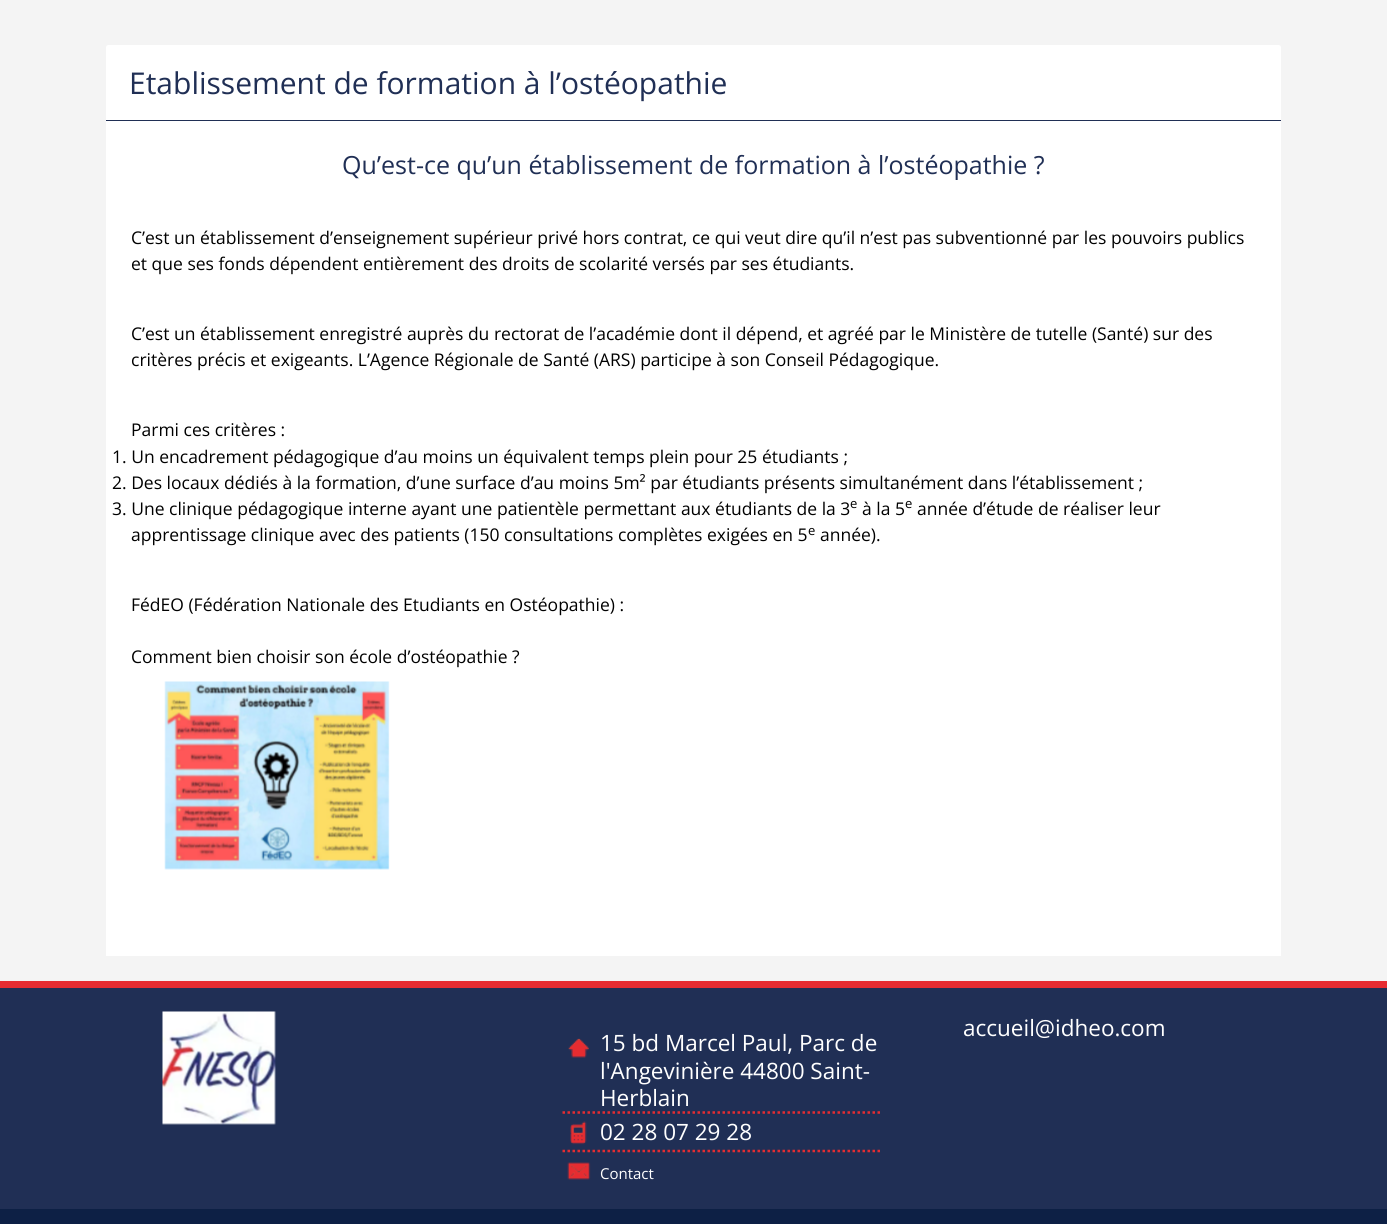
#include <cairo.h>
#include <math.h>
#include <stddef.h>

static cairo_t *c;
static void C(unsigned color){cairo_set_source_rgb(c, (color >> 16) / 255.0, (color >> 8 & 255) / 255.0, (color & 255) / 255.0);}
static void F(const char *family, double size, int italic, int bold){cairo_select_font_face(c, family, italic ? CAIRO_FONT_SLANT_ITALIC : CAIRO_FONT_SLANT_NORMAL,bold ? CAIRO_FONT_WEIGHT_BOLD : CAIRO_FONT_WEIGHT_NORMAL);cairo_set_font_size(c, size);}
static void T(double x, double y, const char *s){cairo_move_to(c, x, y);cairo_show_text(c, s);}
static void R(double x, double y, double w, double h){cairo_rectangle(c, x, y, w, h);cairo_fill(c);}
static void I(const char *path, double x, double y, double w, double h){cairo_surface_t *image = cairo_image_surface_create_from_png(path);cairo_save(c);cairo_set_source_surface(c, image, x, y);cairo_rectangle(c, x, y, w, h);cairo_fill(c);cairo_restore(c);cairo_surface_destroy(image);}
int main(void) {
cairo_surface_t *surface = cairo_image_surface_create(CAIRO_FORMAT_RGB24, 1387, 1224);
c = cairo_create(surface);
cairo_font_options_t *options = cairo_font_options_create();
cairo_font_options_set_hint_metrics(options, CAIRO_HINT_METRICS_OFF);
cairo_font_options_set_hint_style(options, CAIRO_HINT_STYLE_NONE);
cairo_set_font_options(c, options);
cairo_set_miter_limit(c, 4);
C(0xf4f4f4);
cairo_paint(c);
C(0xffffff);
cairo_new_path(c);
cairo_move_to(c,108.5,45);
cairo_line_to(c,1278.5,45);
cairo_curve_to(c,1280,45,1281,46,1281,47.5);
cairo_line_to(c,1281,956);
cairo_line_to(c,106,956);
cairo_line_to(c,106,47.5);
cairo_curve_to(c,106,46,107,45,108.5,45);
cairo_close_path(c);
cairo_fill(c);
C(0x202f55);
R(106,120,1175,1);
F("Open Sans",30,0,0);
T(129,94,"Etablissement de formation à l’ostéopathie");
F("Open Sans",25,0,0);
T(342,174,"Qu’est-ce qu’un établissement de formation à l’ostéopathie ?");
F("Open Sans",17.5,0,0);
C(0x000000);
T(131,244,"C’est un établissement d’enseignement supérieur privé hors contrat, ce qui veut dire qu’il n’est pas subventionné par les pouvoirs publics");
T(131,270,"et que ses fonds dépendent entièrement des droits de scolarité versés par ses étudiants.");
T(131,340,"C’est un établissement enregistré auprès du rectorat de l’académie dont il dépend, et agréé par le Ministère de tutelle (Santé) sur des");
T(131,366,"critères précis et exigeants. L’Agence Régionale de Santé (ARS) participe à son Conseil Pédagogique.");
T(131,436,"Parmi ces critères :");
T(112,463,"1. Un encadrement pédagogique d’au moins un équivalent temps plein pour 25 étudiants ;");
T(112,489,"2. Des locaux dédiés à la formation, d’une surface d’au moins 5m² par étudiants présents simultanément dans l’établissement ;");
T(112,515,"3. Une clinique pédagogique interne ayant une patientèle permettant aux étudiants de la 3");
F("Open Sans",13,0,0);
T(850,508,"e");
F("Open Sans",17.5,0,0);
T(862,515,"à la 5");
F("Open Sans",13,0,0);
T(905,508,"e");
F("Open Sans",17.5,0,0);
T(917,515,"année d’étude de réaliser leur");
T(131,541,"apprentissage clinique avec des patients (150 consultations complètes exigées en 5");
F("Open Sans",13,0,0);
T(808,535,"e");
F("Open Sans",17.5,0,0);
T(820,541,"année).");
T(131,611,"FédEO (Fédération Nationale des Etudiants en Ostéopathie) :");
T(131,663,"Comment bien choisir son école d’ostéopathie ?");
I("1.png",164,681,226,189);
C(0x0d2045);
R(0,1209,1387,15);
C(0xe62c31);
R(0,981,1387,7);
C(0x202f55);
R(0,988,1387,221);
I("2.png",162,1011,114,114);
F("Open Sans",22.5,0,0);
C(0xffffff);
T(963,1036,"accueil@idheo.com");
cairo_new_path(c);
cairo_move_to(c,562.5,1112.5);
cairo_line_to(c,881,1112.5);
C(0xe62c31);
cairo_set_line_width(c,2.5);
cairo_set_dash(c,(double[]){2.5,2.5},2,0);
cairo_stroke(c);
I("3.png",568,1038,21,20);
C(0xffffff);
T(600,1051,"15 bd Marcel Paul, Parc de");
T(600,1079,"l'Angevinière 44800 Saint-");
T(600,1106,"Herblain");
I("4.png",570,1121,17,24);
cairo_new_path(c);
cairo_move_to(c,562.5,1151);
cairo_line_to(c,881,1151);
C(0xe62c31);
cairo_stroke(c);
C(0xffffff);
T(600,1140,"02 28 07 29 28");
I("5.png",567,1162,24,18);
F("Open Sans",15,0,0);
T(600,1179,"Contact");
cairo_surface_write_to_png(surface, "o.png");
cairo_font_options_destroy(options);
cairo_destroy(c);
cairo_surface_destroy(surface);
return 0;
}
